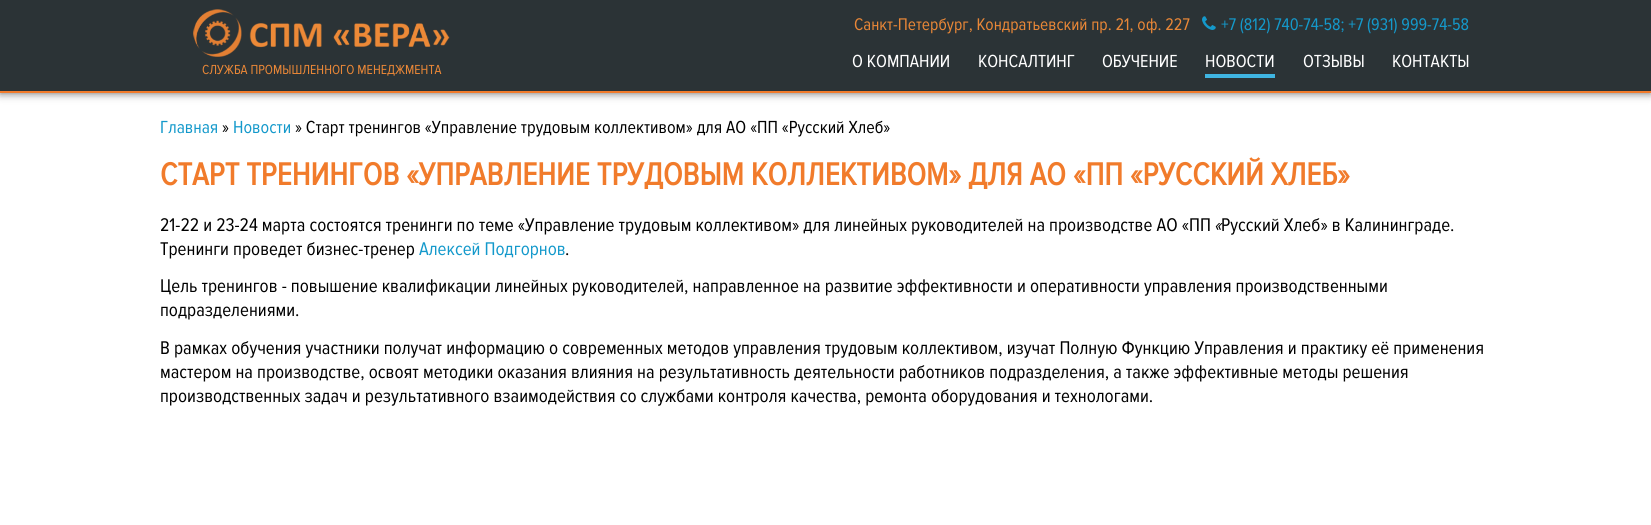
#include <cairo.h>
#include <math.h>
#include <stddef.h>

static cairo_t *c;
static void C(unsigned color){cairo_set_source_rgb(c, (color >> 16) / 255.0, (color >> 8 & 255) / 255.0, (color & 255) / 255.0);}
static void F(const char *family, double size, int italic, int bold){cairo_select_font_face(c, family, italic ? CAIRO_FONT_SLANT_ITALIC : CAIRO_FONT_SLANT_NORMAL,bold ? CAIRO_FONT_WEIGHT_BOLD : CAIRO_FONT_WEIGHT_NORMAL);cairo_set_font_size(c, size);}
static void T(double x, double y, const char *s){cairo_move_to(c, x, y);cairo_show_text(c, s);}
static void R(double x, double y, double w, double h){cairo_rectangle(c, x, y, w, h);cairo_fill(c);}
static void Q(double x, double y, double w, double h, double r){cairo_new_sub_path(c);cairo_arc(c, x + w - r, y + h - r, r, 0, M_PI / 2);cairo_arc(c, x + r, y + h - r, r, M_PI / 2, M_PI);cairo_arc(c, x + r, y + r, r, M_PI, 1.5 * M_PI);cairo_arc(c, x + w - r, y + r, r, 1.5 * M_PI, 2 * M_PI);cairo_close_path(c);}
static void S(double x, double y, double w, double h, double r, double blur, double alpha){cairo_push_group_with_content(c, CAIRO_CONTENT_ALPHA);cairo_set_operator(c, CAIRO_OPERATOR_SOURCE);for (int i = 15; i >= -15 && fmin(w, h) + blur * i / 3 > 0; i -= 2) {double e = blur * i / 6;cairo_set_source_rgba(c, 0, 0, 0, alpha * erfc((i - 1) / 8.5) / 2);Q(x - e, y - e, w + 2 * e, h + 2 * e, fmax(0, fmin(r + e + blur * .6, fmin(w, h) / 2 + e)));cairo_fill(c);}cairo_pattern_t *soft = cairo_pop_group(c);cairo_mask(c, soft);cairo_pattern_destroy(soft);}
static void I(const char *path, double x, double y, double w, double h){cairo_surface_t *image = cairo_image_surface_create_from_png(path);cairo_save(c);cairo_set_source_surface(c, image, x, y);cairo_rectangle(c, x, y, w, h);cairo_fill(c);cairo_restore(c);cairo_surface_destroy(image);}
int main(void) {
cairo_surface_t *surface = cairo_image_surface_create(CAIRO_FORMAT_RGB24, 1651, 525);
c = cairo_create(surface);
cairo_font_options_t *options = cairo_font_options_create();
cairo_font_options_set_hint_metrics(options, CAIRO_HINT_METRICS_OFF);
cairo_font_options_set_hint_style(options, CAIRO_HINT_STYLE_NONE);
cairo_set_font_options(c, options);
cairo_set_miter_limit(c, 4);
C(0xffffff);
cairo_paint(c);
C(0x626262);
S(0,0,1651,93,0,4.5,1);
C(0x2b3336);
R(0,0,1651,91);
C(0xf17b2b);
R(0,91,1651,2);
F("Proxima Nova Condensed",17.5,0,0);
C(0xe98737);
T(854,30,"Санкт-Петербург, Кондратьевский пр. 21, оф. 227");
I("1.png",1202,16,14,14);
C(0x1499cb);
T(1221,30,"+7 (812) 740-74-58; +7 (931) 999-74-58");
F("Proxima Nova Condensed",18.15,0,0);
C(0xffffff);
T(852,67,"О КОМПАНИИ");
T(978,67,"КОНСАЛТИНГ");
T(1102,67,"ОБУЧЕНИЕ");
C(0x3fb5e2);
R(1205,74,70,4);
C(0xffffff);
T(1205,67,"НОВОСТИ");
T(1303,67,"ОТЗЫВЫ");
T(1392,67,"КОНТАКТЫ");
I("2.png",193,9,257,48);
F("Proxima Nova Condensed",13.6,0,0);
C(0xe98737);
T(202,74,"СЛУЖБА ПРОМЫШЛЕННОГО МЕНЕДЖМЕНТА");
F("Proxima Nova Condensed",18.15,0,0);
C(0x1499cb);
T(160,133,"Главная");
C(0x000000);
T(222,133,"»");
C(0x1499cb);
T(233,133,"Новости");
C(0x000000);
T(295,133,"» Старт тренингов «Управление трудовым коллективом» для АО «ПП «Русский Хлеб»");
F("Proxima Nova Condensed",32.7,0,1);
C(0xf17b2b);
T(160,185,"СТАРТ ТРЕНИНГОВ «УПРАВЛЕНИЕ ТРУДОВЫМ КОЛЛЕКТИВОМ» ДЛЯ АО «ПП «РУССКИЙ ХЛЕБ»");
F("Proxima Nova Condensed",19.07,0,0);
C(0x000000);
T(160,231,"21-22 и 23-24 марта состоятся тренинги по теме «Управление трудовым коллективом» для линейных руководителей на производстве АО «ПП");
F("Proxima Nova Condensed",19.07,1,0);
T(1214,231,"«");
F("Proxima Nova Condensed",19.07,0,0);
T(1221,231,"Русский Хлеб» в Калининграде.");
T(160,255,"Тренинги проведет бизнес-тренер");
C(0x1499cb);
T(419,255,"Алексей Подгорнов");
C(0x000000);
T(565,255,".");
T(160,292,"Цель тренингов - повышение квалификации линейных руководителей, направленное на развитие эффективности и оперативности управления производственными");
T(160,316,"подразделениями.");
T(160,354,"В рамках обучения участники получат информацию о современных методов управления трудовым коллективом, изучат Полную Функцию Управления и практику её применения");
T(160,378,"мастером на производстве, освоят методики оказания влияния на результативность деятельности работников подразделения, а также эффективные методы решения");
T(160,402,"производственных задач и результативного взаимодействия со службами контроля качества, ремонта оборудования и технологами.");
cairo_surface_write_to_png(surface, "o.png");
cairo_font_options_destroy(options);
cairo_destroy(c);
cairo_surface_destroy(surface);
return 0;
}
